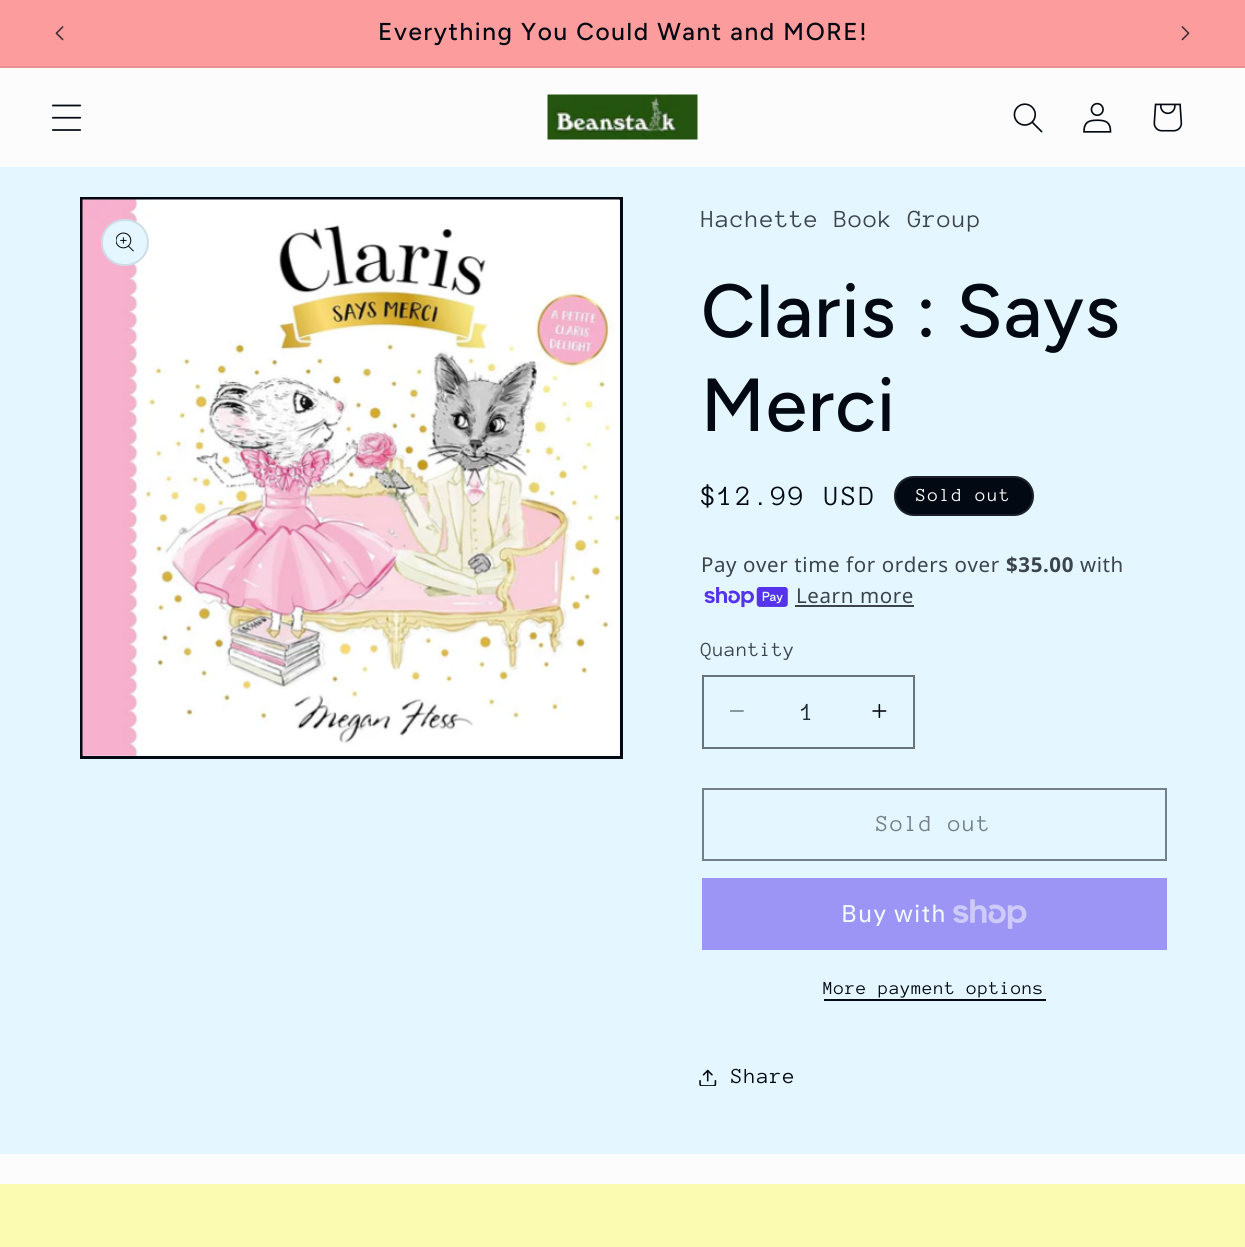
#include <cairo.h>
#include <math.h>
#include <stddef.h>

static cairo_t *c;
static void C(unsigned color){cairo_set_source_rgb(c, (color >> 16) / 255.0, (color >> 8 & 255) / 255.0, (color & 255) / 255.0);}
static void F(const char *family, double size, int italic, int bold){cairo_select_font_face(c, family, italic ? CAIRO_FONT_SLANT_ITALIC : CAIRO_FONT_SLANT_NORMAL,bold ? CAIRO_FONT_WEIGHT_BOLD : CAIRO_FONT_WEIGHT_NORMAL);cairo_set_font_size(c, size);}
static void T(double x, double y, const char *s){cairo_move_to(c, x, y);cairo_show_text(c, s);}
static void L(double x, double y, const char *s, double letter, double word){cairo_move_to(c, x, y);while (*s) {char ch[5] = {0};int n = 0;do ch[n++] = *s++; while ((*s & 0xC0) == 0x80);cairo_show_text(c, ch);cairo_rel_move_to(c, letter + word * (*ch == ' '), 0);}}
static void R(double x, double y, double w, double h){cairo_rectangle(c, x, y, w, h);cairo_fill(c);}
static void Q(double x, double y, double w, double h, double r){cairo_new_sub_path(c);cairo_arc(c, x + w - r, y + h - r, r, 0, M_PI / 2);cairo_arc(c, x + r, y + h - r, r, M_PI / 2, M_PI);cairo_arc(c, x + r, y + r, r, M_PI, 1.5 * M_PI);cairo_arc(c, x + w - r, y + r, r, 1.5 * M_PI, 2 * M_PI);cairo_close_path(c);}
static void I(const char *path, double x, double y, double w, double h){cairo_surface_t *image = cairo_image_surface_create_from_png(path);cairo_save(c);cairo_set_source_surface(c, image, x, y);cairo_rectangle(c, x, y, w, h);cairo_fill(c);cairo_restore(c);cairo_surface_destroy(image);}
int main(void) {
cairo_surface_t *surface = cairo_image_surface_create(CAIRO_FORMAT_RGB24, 1245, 1247);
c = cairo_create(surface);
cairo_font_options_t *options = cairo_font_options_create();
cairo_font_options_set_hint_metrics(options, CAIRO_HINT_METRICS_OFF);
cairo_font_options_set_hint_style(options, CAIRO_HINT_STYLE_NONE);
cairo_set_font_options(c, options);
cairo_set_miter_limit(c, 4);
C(0xfcfcfc);
cairo_paint(c);
C(0xfc9c9c);
R(0,0,1245,66);
C(0xe89091);
R(0,66,1245,2);
I("1.png",55,26,9,15);
F("Figtree Medium",24.4,0,0);
C(0x020912);
L(378,40,"Everything You Could Want and MORE!",1.6,0);
I("2.png",1181,26,9,15);
I("3.png",51,104,31,27);
I("4.png",547,94,151,46);
I("5.png",1013,103,30,30);
I("6.png",1083,102,29,31);
I("7.png",1153,103,30,29);
C(0xe4f6ff);
R(0,167,1245,987);
cairo_rectangle(c,81.5,198.5,540,559);
C(0x020912);
cairo_set_line_width(c,3);
cairo_stroke(c);
I("8.png",82,199,538,557);
C(0xe4f6ff);
Q(101,219,48,47,23.5);
cairo_fill(c);
Q(102,220,46,45,22.5);
cairo_set_source_rgba(c,0.008,0.035,0.071,0.1);
cairo_set_line_width(c,2);
cairo_stroke(c);
I("9.png",116,232,18,20);
F("Anonymous Pro",25.25,0,0);
C(0x3b444d);
L(701,227,"Hachette Book Group",1,0);
F("Figtree Medium",75,0,0);
C(0x020912);
L(701,337,"Claris : Says",1.1,0);
L(701,431,"Merci",1.1,0);
F("Anonymous Pro",28.5,0,0);
L(701,505,"$12.99 USD",2,0);
Q(894,476,140,40,20);
cairo_fill(c);
Q(895,477,138,38,19);
cairo_set_source_rgba(c,0.988,0.988,0.988,0.1);
cairo_stroke(c);
F("Anonymous Pro",18.9,0,0);
C(0xfcfcfc);
L(916,501,"Sold out",1.6,0);
F("Noto Sans",20.5,0,0);
C(0x3b444d);
L(701,572,"Pay over time for orders over",.6,0);
F("Noto Sans",20.5,0,1);
L(1006,572,"$35.00",.6,0);
F("Noto Sans",20.5,0,0);
L(1080,572,"with",.6,0);
I("10.png",704,587,84,21);
L(796,603,"Learn more",.6,0);
R(795,605,119,2);
F("Anonymous Pro",20.5,0,0);
L(701,656,"Quantity",.6,0);
I("11.png",729,710,15,2);
I("12.png",872,704,15,14);
cairo_rectangle(c,703,676,211,72);
C(0x68747d);
cairo_stroke(c);
F("Anonymous Pro",25.25,0,0);
C(0x242d36);
T(801,720,"1");
cairo_rectangle(c,703,789,463,71);
C(0x738089);
cairo_stroke(c);
F("Anonymous Pro",23.5,0,0);
L(876,831,"Sold out",1.6,0);
C(0x9c95f5);
R(702,878,465,72);
F("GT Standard",24,0,0);
C(0xf2fbff);
L(841,922,"Buy with",1,0);
I("13.png",953,899,74,30);
F("Anonymous Pro",18.9,0,0);
C(0x020912);
L(823,994,"More payment options",.75,0);
R(824,999,222,2);
I("14.png",699,1069,18,17);
F("Anonymous Pro",22,0,0);
L(731,1083,"Share",1,0);
C(0xfcfbb2);
R(0,1184,1245,63);
cairo_surface_write_to_png(surface, "o.png");
cairo_font_options_destroy(options);
cairo_destroy(c);
cairo_surface_destroy(surface);
return 0;
}
